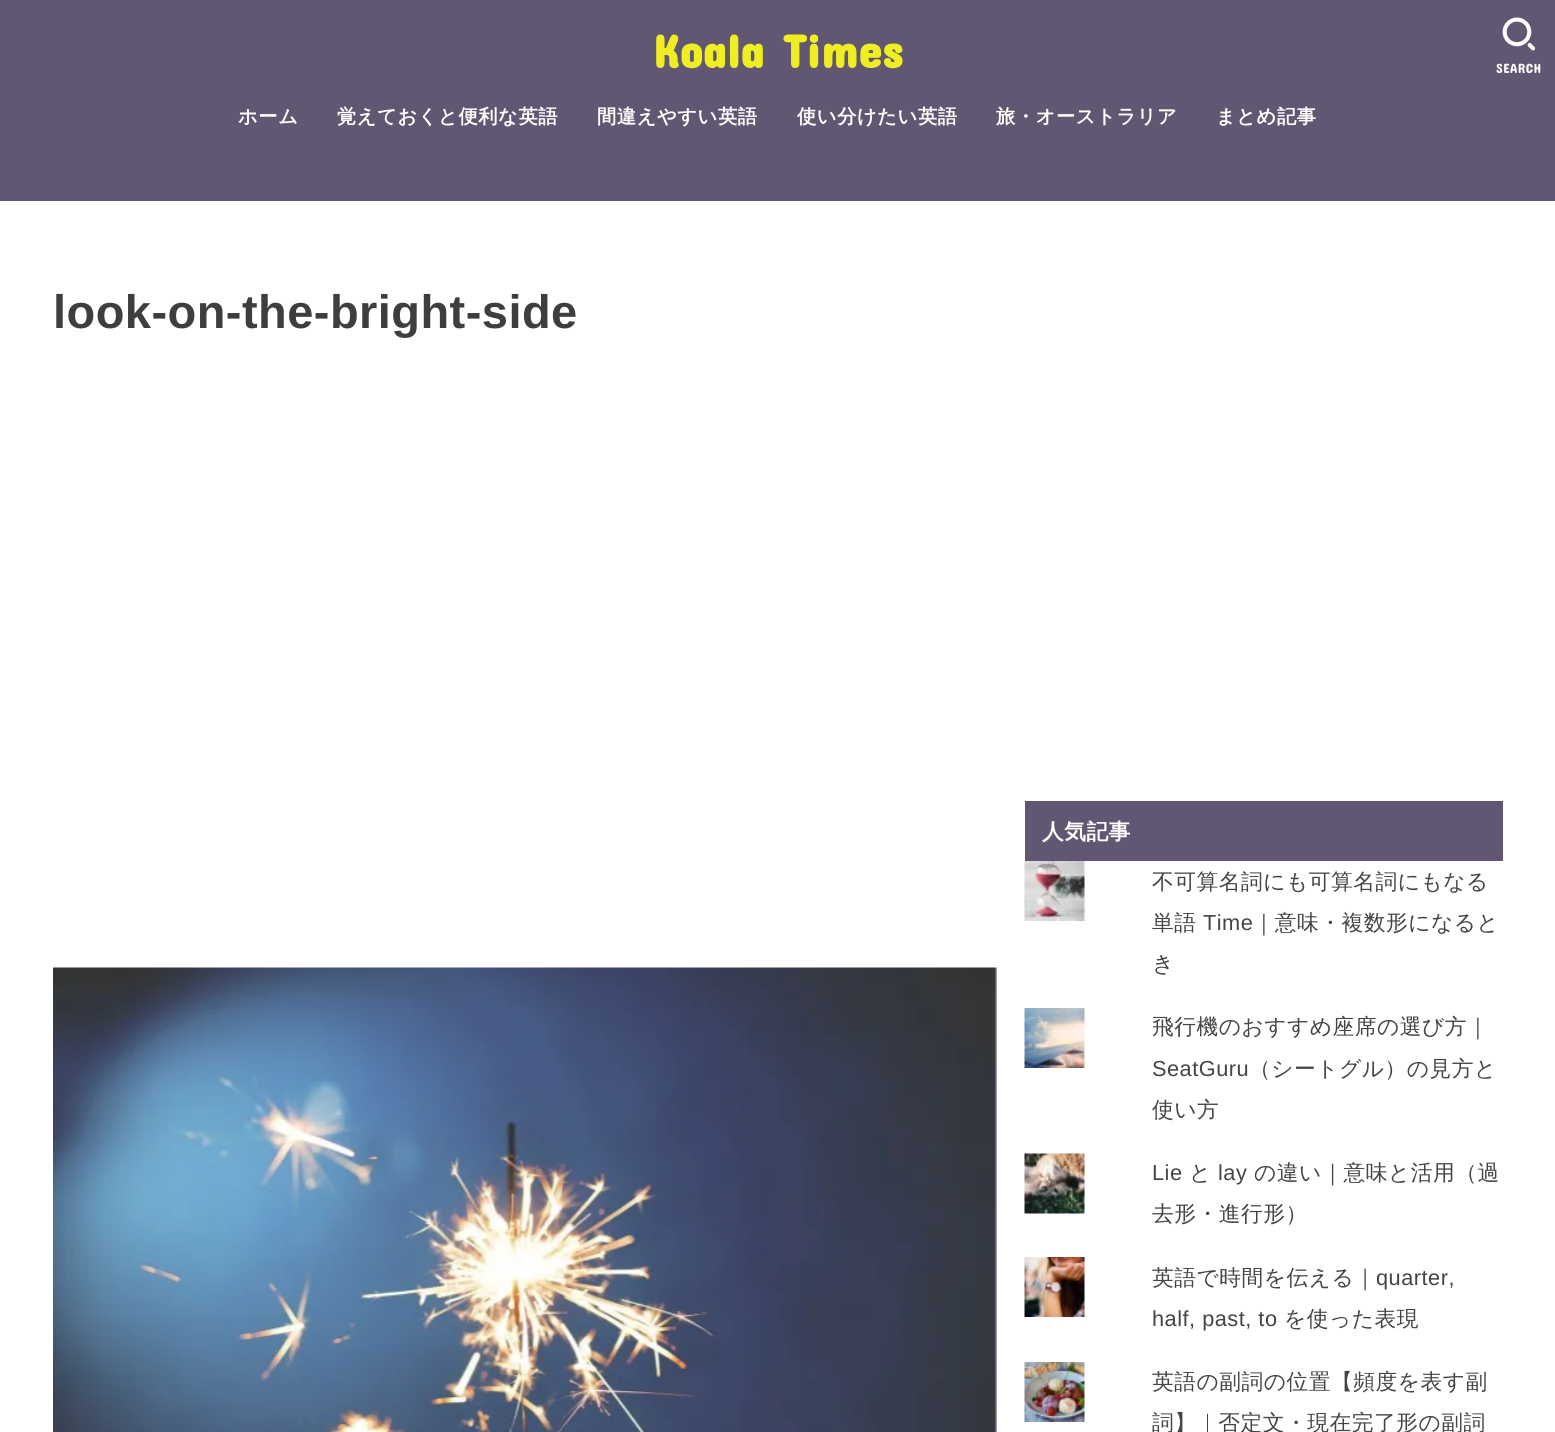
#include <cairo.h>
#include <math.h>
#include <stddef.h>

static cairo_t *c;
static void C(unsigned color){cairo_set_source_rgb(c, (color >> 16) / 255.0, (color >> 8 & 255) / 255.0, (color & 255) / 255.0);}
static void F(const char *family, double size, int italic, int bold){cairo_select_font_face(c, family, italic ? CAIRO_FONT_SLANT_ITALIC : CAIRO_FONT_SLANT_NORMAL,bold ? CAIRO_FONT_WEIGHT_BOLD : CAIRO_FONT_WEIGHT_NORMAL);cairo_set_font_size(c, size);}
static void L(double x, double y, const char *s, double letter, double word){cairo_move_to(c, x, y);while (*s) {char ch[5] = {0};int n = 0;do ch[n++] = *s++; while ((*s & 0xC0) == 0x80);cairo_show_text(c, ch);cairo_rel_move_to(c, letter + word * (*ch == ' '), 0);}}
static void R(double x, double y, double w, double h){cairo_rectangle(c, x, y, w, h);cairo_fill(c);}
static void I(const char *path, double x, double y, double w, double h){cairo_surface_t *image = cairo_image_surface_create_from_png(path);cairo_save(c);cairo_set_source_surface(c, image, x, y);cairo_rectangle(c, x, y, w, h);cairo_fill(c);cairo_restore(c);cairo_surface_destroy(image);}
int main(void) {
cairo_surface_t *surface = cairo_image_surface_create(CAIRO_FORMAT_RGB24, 1555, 1432);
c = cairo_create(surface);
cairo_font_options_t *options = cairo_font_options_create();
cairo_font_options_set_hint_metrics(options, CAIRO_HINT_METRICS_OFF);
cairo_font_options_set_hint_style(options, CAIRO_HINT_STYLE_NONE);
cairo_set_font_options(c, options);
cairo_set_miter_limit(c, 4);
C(0x625772);
cairo_paint(c);
F("Concert One",47,0,1);
C(0xeeee22);
L(653,68,"Koala Times",.45,0);
I("1.png",1502,17,33,34);
F("Concert One",13.5,0,0);
C(0xffffff);
L(1496,73,"SEARCH",.45,0);
F("WenQuanYi Zen Hei",19.25,0,1);
L(238,123,"ホーム",.6,0);
L(337,123,"覚えておくと便利な英語",.6,0);
L(597,123,"間違えやすい英語",.6,0);
L(797,123,"使い分けたい英語",.6,0);
L(996,123,"旅・オーストラリア",.6,0);
L(1216,123,"まとめ記事",.6,0);
R(0,201,1555,1231);
F("Liberation Sans",47,0,1);
C(0x3e3e3e);
L(53,328,"look-on-the-bright-side",.45,0);
I("2.png",53,967,944,465);
C(0x625772);
R(1025,801,478,60);
F("WenQuanYi Zen Hei",21.75,0,1);
C(0xffffff);
L(1042,839,"人気記事",.45,0);
I("3.png",1024,861,61,60);
F("WenQuanYi Zen Hei Medium",21.75,0,0);
C(0x444444);
L(1152,889,"不可算名詞にも可算名詞にもなる",.5,0);
L(1152,930,"単語",.5,0);
F("Liberation Sans",21.75,0,0);
L(1203,930,"Time",.5,0);
F("WenQuanYi Zen Hei Medium",21.75,0,0);
L(1253,930,"｜意味・複数形になると",.5,0);
L(1152,971,"き",.5,0);
I("4.png",1024,1008,61,60);
L(1152,1034,"飛行機のおすすめ座席の選び方｜",.5,0);
F("Liberation Sans",21.75,0,0);
L(1152,1076,"SeatGuru",.5,0);
F("WenQuanYi Zen Hei Medium",21.75,0,0);
L(1249,1076,"（シートグル）の見方と",.5,0);
L(1152,1117,"使い方",.5,0);
I("5.png",1024,1153,61,61);
F("Liberation Sans",21.75,0,0);
L(1152,1180,"Lie",.5,0);
F("WenQuanYi Zen Hei Medium",21.75,0,0);
L(1189,1180,"と",.5,0);
F("Liberation Sans",21.75,0,0);
L(1218,1180,"lay",.5,0);
F("WenQuanYi Zen Hei Medium",21.75,0,0);
L(1254,1180,"の違い｜意味と活用（過",.5,0);
L(1152,1221,"去形・進行形）",.5,0);
I("6.png",1024,1257,61,60);
L(1152,1285,"英語で時間を伝える｜",.5,0);
F("Liberation Sans",21.75,0,0);
L(1376,1285,"quarter,",.5,0);
L(1152,1326,"half, past, to",.5,0);
F("WenQuanYi Zen Hei Medium",21.75,0,0);
L(1284,1326,"を使った表現",.5,0);
I("7.png",1024,1362,61,60);
L(1152,1389,"英語の副詞の位置【頻度を表す副",.5,0);
L(1152,1430,"詞】｜否定文・現在完了形の副詞",.5,0);
cairo_surface_write_to_png(surface, "o.png");
cairo_font_options_destroy(options);
cairo_destroy(c);
cairo_surface_destroy(surface);
return 0;
}
